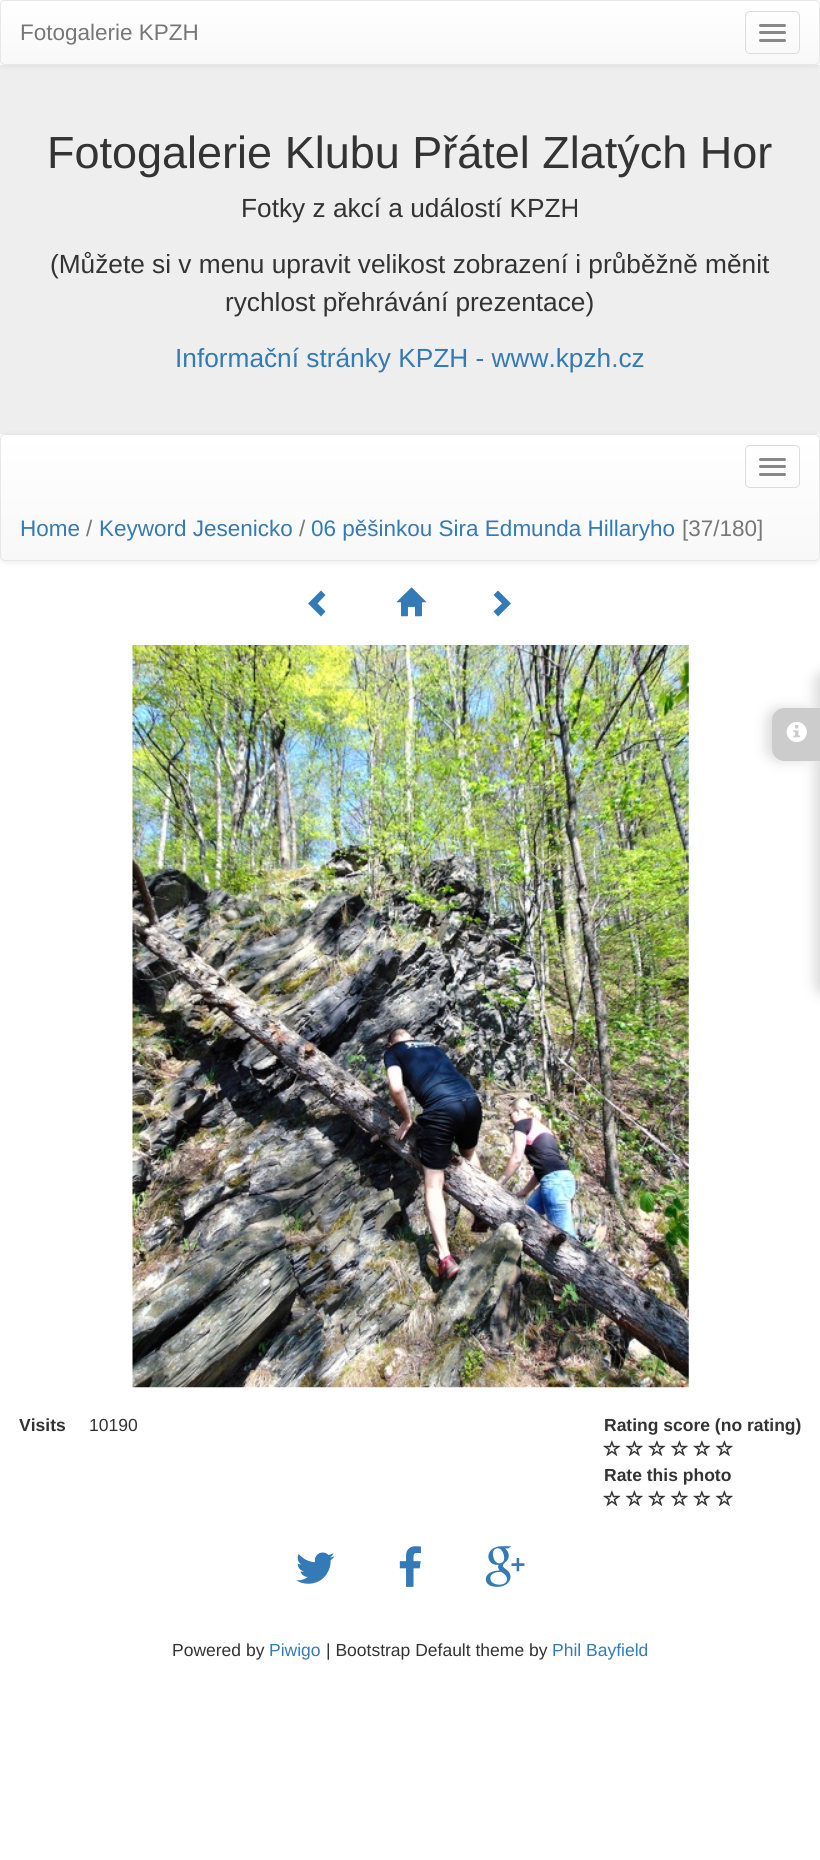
#include <cairo.h>
#include <math.h>
#include <stddef.h>

static cairo_t *c;
static void C(unsigned color){cairo_set_source_rgb(c, (color >> 16) / 255.0, (color >> 8 & 255) / 255.0, (color & 255) / 255.0);}
static void F(const char *family, double size, int italic, int bold){cairo_select_font_face(c, family, italic ? CAIRO_FONT_SLANT_ITALIC : CAIRO_FONT_SLANT_NORMAL,bold ? CAIRO_FONT_WEIGHT_BOLD : CAIRO_FONT_WEIGHT_NORMAL);cairo_set_font_size(c, size);}
static void T(double x, double y, const char *s){cairo_move_to(c, x, y);cairo_show_text(c, s);}
static void R(double x, double y, double w, double h){cairo_rectangle(c, x, y, w, h);cairo_fill(c);}
static void Q(double x, double y, double w, double h, double r){cairo_new_sub_path(c);cairo_arc(c, x + w - r, y + h - r, r, 0, M_PI / 2);cairo_arc(c, x + r, y + h - r, r, M_PI / 2, M_PI);cairo_arc(c, x + r, y + r, r, M_PI, 1.5 * M_PI);cairo_arc(c, x + w - r, y + r, r, 1.5 * M_PI, 2 * M_PI);cairo_close_path(c);}
static void S(double x, double y, double w, double h, double r, double blur, double alpha){cairo_push_group_with_content(c, CAIRO_CONTENT_ALPHA);cairo_set_operator(c, CAIRO_OPERATOR_SOURCE);for (int i = 15; i >= -15 && fmin(w, h) + blur * i / 3 > 0; i -= 2) {double e = blur * i / 6;cairo_set_source_rgba(c, 0, 0, 0, alpha * erfc((i - 1) / 8.5) / 2);Q(x - e, y - e, w + 2 * e, h + 2 * e, fmax(0, fmin(r + e + blur * .6, fmin(w, h) / 2 + e)));cairo_fill(c);}cairo_pattern_t *soft = cairo_pop_group(c);cairo_mask(c, soft);cairo_pattern_destroy(soft);}
static void I(const char *path, double x, double y, double w, double h){cairo_surface_t *image = cairo_image_surface_create_from_png(path);cairo_save(c);cairo_set_source_surface(c, image, x, y);cairo_rectangle(c, x, y, w, h);cairo_fill(c);cairo_restore(c);cairo_surface_destroy(image);}
int main(void) {
cairo_surface_t *surface = cairo_image_surface_create(CAIRO_FORMAT_RGB24, 820, 1860);
c = cairo_create(surface);
cairo_font_options_t *options = cairo_font_options_create();
cairo_font_options_set_hint_metrics(options, CAIRO_HINT_METRICS_OFF);
cairo_font_options_set_hint_style(options, CAIRO_HINT_STYLE_NONE);
cairo_set_font_options(c, options);
cairo_set_miter_limit(c, 4);
cairo_pattern_t *gradient;
C(0xffffff);
cairo_paint(c);
C(0xeeeeee);
R(0,65,820,369);
C(0x000000);
S(0,1,820,65,5,3,.07);
cairo_save(c);
Q(0,0,820,65,5);
cairo_clip(c);
gradient = cairo_pattern_create_linear(410,1.2,410,64);
cairo_pattern_add_color_stop_rgba(gradient,0,1,1,1,1);
cairo_pattern_add_color_stop_rgba(gradient,1,0.973,0.973,0.973,1);
cairo_set_source(c,gradient);
cairo_pattern_destroy(gradient);
R(0,1,820,63);
cairo_restore(c);
Q(.5,.5,819,64,4.5);
C(0xe7e7e7);
cairo_set_line_width(c,1);
cairo_stroke(c);
F("Liberation Sans",22.5,0,0);
C(0x777777);
T(20,40,"Fotogalerie KPZH");
Q(745.5,11.5,54,42,4.5);
C(0xdddddd);
cairo_stroke(c);
C(0x888888);
Q(759,24,27,3,1.5);
cairo_fill(c);
Q(759,31,27,3,1.5);
cairo_fill(c);
Q(759,39,27,3,1.5);
cairo_fill(c);
F("Liberation Sans",45,0,0);
C(0x333333);
T(47,168,"Fotogalerie Klubu Přátel Zlatých Hor");
F("Liberation Sans",26.25,0,0);
T(241,217,"Fotky z akcí a událostí KPZH");
T(50,273,"(Můžete si v menu upravit velikost zobrazení i průběžně měnit");
T(225,311,"rychlost přehrávání prezentace)");
C(0x337ab7);
T(175,367,"Informační stránky KPZH - www.kpzh.cz");
C(0x000000);
S(0,435,820,128,5,3,.07);
cairo_save(c);
Q(0,434,820,127,5);
cairo_clip(c);
gradient = cairo_pattern_create_linear(410,435,410,560);
cairo_pattern_add_color_stop_rgba(gradient,0,1,1,1,1);
cairo_pattern_add_color_stop_rgba(gradient,1,0.973,0.973,0.973,1);
cairo_set_source(c,gradient);
cairo_pattern_destroy(gradient);
R(0,435,820,125);
cairo_restore(c);
Q(.5,434.5,819,126,4.5);
C(0xe7e7e7);
cairo_stroke(c);
Q(745.5,445.5,54,42,4.5);
C(0xdddddd);
cairo_stroke(c);
C(0x888888);
Q(759,458,27,3,1.5);
cairo_fill(c);
Q(759,465,27,3,1.5);
cairo_fill(c);
Q(759,473,27,3,1.5);
cairo_fill(c);
F("Liberation Sans",22.5,0,0);
C(0x337ab7);
T(20,536,"Home");
C(0x777777);
T(86,536,"/");
C(0x337ab7);
T(99,536,"Keyword Jesenicko");
C(0x777777);
T(299,536,"/");
C(0x337ab7);
T(311,536,"06 pěšinkou Sira Edmunda Hillaryho");
C(0x777777);
T(682,536,"[37/180]");
C(0x337ab7);
cairo_new_path(c);
cairo_move_to(c,325.5,595);
cairo_line_to(c,317.5,603.5);
cairo_line_to(c,325.5,611.5);
cairo_line_to(c,321,616.5);
cairo_line_to(c,308,603.5);
cairo_line_to(c,321,590.5);
cairo_close_path(c);
cairo_fill(c);
I("1.png",396,587,31,30);
cairo_new_path(c);
cairo_move_to(c,511,603.5);
cairo_line_to(c,498,616.5);
cairo_line_to(c,493.5,611.5);
cairo_line_to(c,502,603.5);
cairo_line_to(c,493.5,595);
cairo_line_to(c,498,590.5);
cairo_close_path(c);
cairo_fill(c);
I("2.png",132,645,557,743);
C(0xdddddd);
S(814,670,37,326,13,6,1);
S(766,708,48,53,13,6,1);
C(0xcccccc);
cairo_new_path(c);
cairo_move_to(c,786,708);
cairo_line_to(c,820,708);
cairo_line_to(c,820,761);
cairo_line_to(c,786,761);
cairo_curve_to(c,779,761,773,755,773,748);
cairo_line_to(c,773,721);
cairo_curve_to(c,773,714,779,708,786,708);
cairo_close_path(c);
cairo_fill(c);
cairo_set_fill_rule(c,CAIRO_FILL_RULE_EVEN_ODD);
cairo_new_path(c);
cairo_move_to(c,785,708);
cairo_line_to(c,820,708);
cairo_line_to(c,820,761);
cairo_line_to(c,785,761);
cairo_curve_to(c,778,761,772,756,772,749);
cairo_line_to(c,772,720);
cairo_curve_to(c,772,713,778,708,785,708);
cairo_close_path(c);
cairo_move_to(c,785,709);
cairo_line_to(c,820,709);
cairo_line_to(c,820,760);
cairo_line_to(c,785,760);
cairo_curve_to(c,779,760,774,755,774,749);
cairo_line_to(c,774,720);
cairo_curve_to(c,774,714,779,709,785,709);
cairo_close_path(c);
cairo_fill(c);
I("3.png",786,722,21,20);
F("Liberation Sans",17.5,0,1);
C(0x333333);
T(19,1431,"Visits");
F("Liberation Sans",17.5,0,0);
T(89,1431,"10190");
F("Liberation Sans",17.5,0,1);
T(604,1431,"Rating score (no rating)");
I("4.png",603,1440,18,17);
I("5.png",625,1440,18,17);
I("4.png",648,1440,18,17);
I("5.png",670,1440,18,17);
I("4.png",693,1440,18,17);
I("5.png",715,1440,18,17);
T(604,1481,"Rate this photo");
I("4.png",603,1490,18,17);
I("5.png",625,1490,18,17);
I("4.png",648,1490,18,17);
I("5.png",670,1490,18,17);
I("4.png",693,1490,18,17);
I("5.png",715,1490,18,17);
I("6.png",296,1552,39,32);
I("7.png",399,1546,22,41);
I("8.png",485,1546,40,41);
F("Liberation Sans",17.5,0,0);
T(172,1656,"Powered by");
C(0x337ab7);
T(269,1656,"Piwigo");
C(0x333333);
T(326,1656,"| Bootstrap Default theme by");
C(0x337ab7);
T(552,1656,"Phil Bayfield");
cairo_surface_write_to_png(surface, "o.png");
cairo_font_options_destroy(options);
cairo_destroy(c);
cairo_surface_destroy(surface);
return 0;
}
